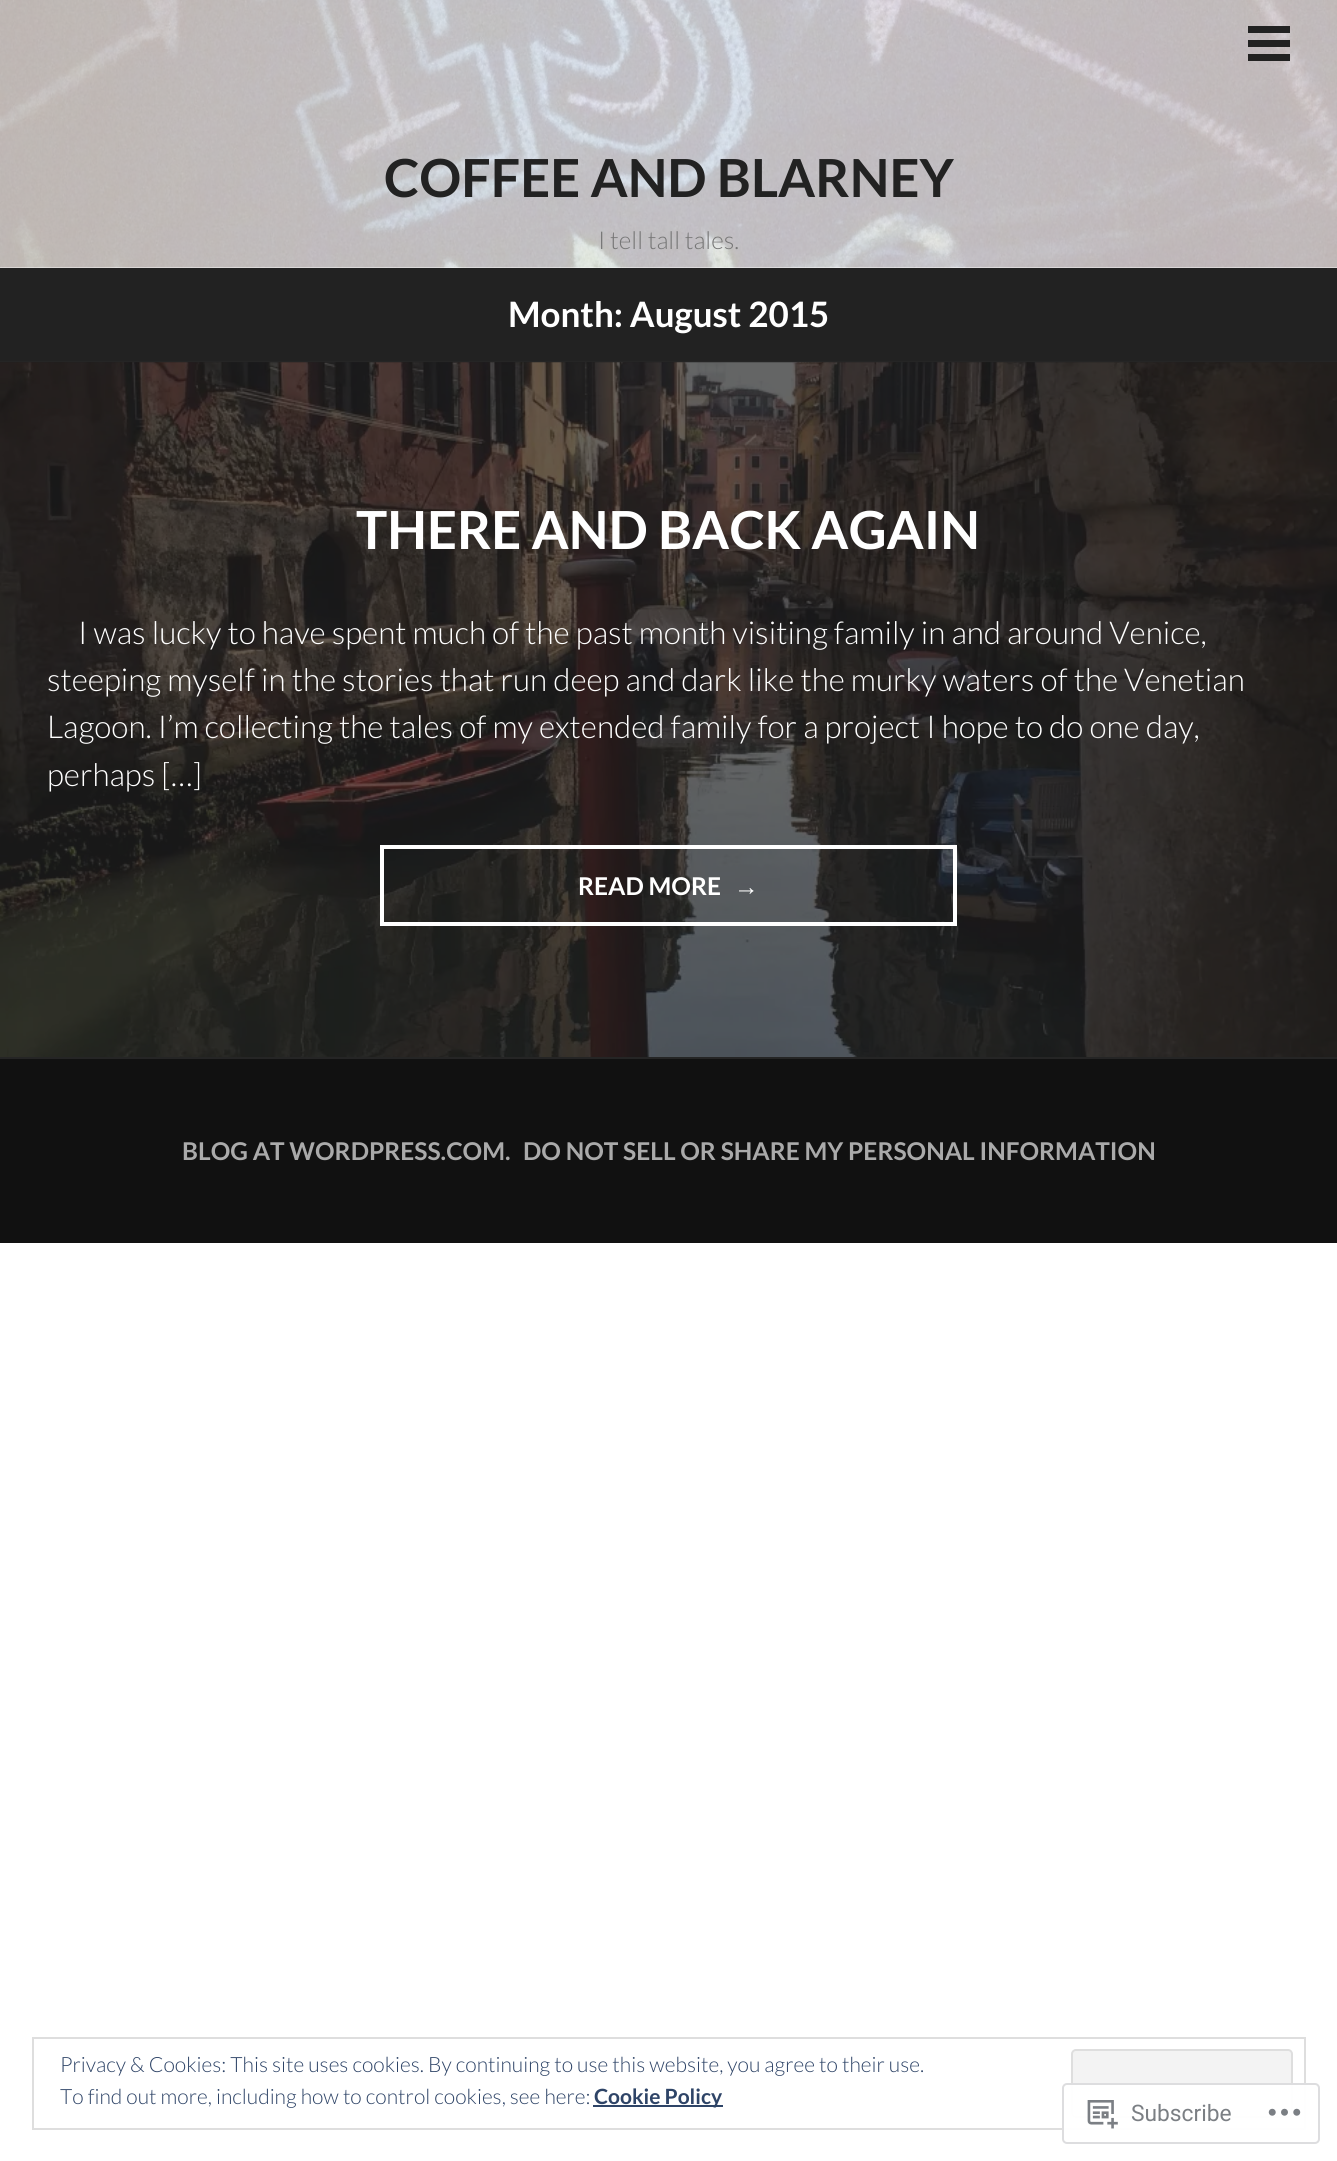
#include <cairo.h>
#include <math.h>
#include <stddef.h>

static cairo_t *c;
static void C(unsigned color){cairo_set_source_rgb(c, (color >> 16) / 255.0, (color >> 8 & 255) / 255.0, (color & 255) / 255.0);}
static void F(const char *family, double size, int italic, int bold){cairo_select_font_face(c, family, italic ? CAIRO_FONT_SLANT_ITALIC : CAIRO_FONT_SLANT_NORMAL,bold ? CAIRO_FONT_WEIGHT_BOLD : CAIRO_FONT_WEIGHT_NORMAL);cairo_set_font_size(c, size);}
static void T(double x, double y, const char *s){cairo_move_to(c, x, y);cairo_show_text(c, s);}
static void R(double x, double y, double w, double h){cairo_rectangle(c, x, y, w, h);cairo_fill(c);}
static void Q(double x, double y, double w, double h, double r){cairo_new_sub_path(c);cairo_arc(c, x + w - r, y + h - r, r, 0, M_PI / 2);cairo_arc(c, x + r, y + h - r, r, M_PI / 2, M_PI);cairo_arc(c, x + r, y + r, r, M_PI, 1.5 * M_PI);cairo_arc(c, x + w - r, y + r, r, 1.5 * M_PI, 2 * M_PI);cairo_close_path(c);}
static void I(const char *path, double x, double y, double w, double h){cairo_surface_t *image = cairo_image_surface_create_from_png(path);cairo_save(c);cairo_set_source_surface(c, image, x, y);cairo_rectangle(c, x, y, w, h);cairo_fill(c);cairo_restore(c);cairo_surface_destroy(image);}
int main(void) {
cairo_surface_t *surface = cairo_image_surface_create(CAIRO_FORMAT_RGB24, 1337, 2161);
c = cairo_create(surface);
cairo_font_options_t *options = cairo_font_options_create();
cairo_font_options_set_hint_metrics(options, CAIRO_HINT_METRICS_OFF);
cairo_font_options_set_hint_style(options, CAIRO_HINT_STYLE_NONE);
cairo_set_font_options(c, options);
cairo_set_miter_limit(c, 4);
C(0xffffff);
cairo_paint(c);
I("1.png",0,0,1337,268);
C(0x222222);
R(1248,40,42,7);
R(1248,26,42,7);
R(1248,54,42,7);
F("Lato",52.5,0,1);
T(384,197,"COFFEE AND BLARNEY");
F("Lato Light",24.5,0,0);
C(0x767676);
T(598,249,"I tell tall tales.");
C(0x222222);
R(0,268,1337,93);
C(0x252525);
R(0,361,1337,1);
F("Lato",35,0,1);
C(0xffffff);
T(508,327,"Month: August 2015");
C(0x222222);
R(0,362,1337,695);
C(0x252525);
R(0,1057,1337,2);
I("2.png",0,362,1337,695);
F("Lato",52.5,0,1);
C(0xffffff);
T(356,549,"THERE AND BACK AGAIN");
F("Lato Light",31.5,0,0);
T(78,644,"I was lucky to have spent much of the past month visiting family in and around Venice,");
T(47,691,"steeping myself in the stories that run deep and dark like the murky waters of the Venetian");
T(47,738,"Lagoon. I’m collecting the tales of my extended family for a project I hope to do one day,");
T(47,786,"perhaps […]");
cairo_rectangle(c,382,847,573,77);
cairo_set_line_width(c,4);
cairo_stroke(c);
F("Lato",24.5,0,1);
T(578,895,"READ MORE");
F("Liberation Sans",24.5,0,1);
T(734,895,"→");
C(0x111111);
R(0,1059,1337,184);
F("Lato",24.5,0,1);
C(0xaaaaaa);
T(182,1160,"BLOG AT WORDPRESS.COM.");
T(523,1160,"DO NOT SELL OR SHARE MY PERSONAL INFORMATION");
cairo_rectangle(c,33,2038,1272,91);
C(0xdedede);
cairo_set_line_width(c,2);
cairo_stroke(c);
F("Lato Light",21,0,0);
C(0x2e4467);
T(60,2072,"Privacy & Cookies: This site uses cookies. By continuing to use this website, you agree to their use.");
C(0xf3f3f3);
Q(1072,2050,220,67,4);
cairo_fill_preserve(c);
C(0xdedede);
cairo_stroke(c);
C(0x2e4467);
T(60,2104,"To find out more, including how to control cookies, see here:");
R(593,2105,130,2);
F("Lato",21,0,1);
T(594,2104,"Cookie Policy");
cairo_set_source_rgba(c,1,1,1,0.98);
Q(1062,2083,258,61,5);
cairo_fill(c);
Q(1063,2084,256,59,4);
cairo_set_source_rgba(c,0.863,0.863,0.871,0.98);
cairo_stroke(c);
I("3.png",1087,2100,31,29);
F("Roboto",22.75,0,0);
C(0x7b7f84);
T(1131,2121,"Subscribe");
I("4.png",1268,2108,33,8);
cairo_surface_write_to_png(surface, "o.png");
cairo_font_options_destroy(options);
cairo_destroy(c);
cairo_surface_destroy(surface);
return 0;
}
